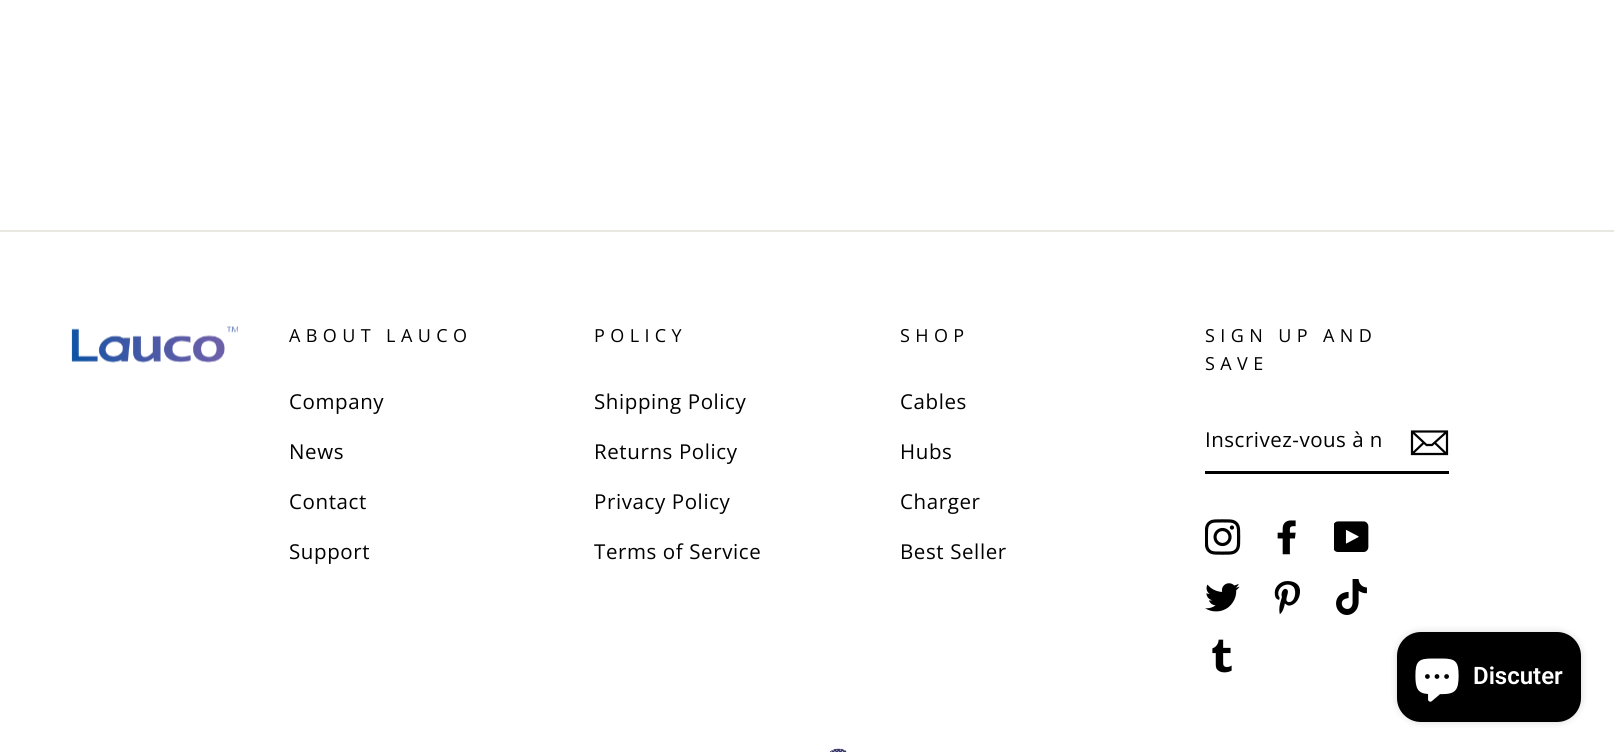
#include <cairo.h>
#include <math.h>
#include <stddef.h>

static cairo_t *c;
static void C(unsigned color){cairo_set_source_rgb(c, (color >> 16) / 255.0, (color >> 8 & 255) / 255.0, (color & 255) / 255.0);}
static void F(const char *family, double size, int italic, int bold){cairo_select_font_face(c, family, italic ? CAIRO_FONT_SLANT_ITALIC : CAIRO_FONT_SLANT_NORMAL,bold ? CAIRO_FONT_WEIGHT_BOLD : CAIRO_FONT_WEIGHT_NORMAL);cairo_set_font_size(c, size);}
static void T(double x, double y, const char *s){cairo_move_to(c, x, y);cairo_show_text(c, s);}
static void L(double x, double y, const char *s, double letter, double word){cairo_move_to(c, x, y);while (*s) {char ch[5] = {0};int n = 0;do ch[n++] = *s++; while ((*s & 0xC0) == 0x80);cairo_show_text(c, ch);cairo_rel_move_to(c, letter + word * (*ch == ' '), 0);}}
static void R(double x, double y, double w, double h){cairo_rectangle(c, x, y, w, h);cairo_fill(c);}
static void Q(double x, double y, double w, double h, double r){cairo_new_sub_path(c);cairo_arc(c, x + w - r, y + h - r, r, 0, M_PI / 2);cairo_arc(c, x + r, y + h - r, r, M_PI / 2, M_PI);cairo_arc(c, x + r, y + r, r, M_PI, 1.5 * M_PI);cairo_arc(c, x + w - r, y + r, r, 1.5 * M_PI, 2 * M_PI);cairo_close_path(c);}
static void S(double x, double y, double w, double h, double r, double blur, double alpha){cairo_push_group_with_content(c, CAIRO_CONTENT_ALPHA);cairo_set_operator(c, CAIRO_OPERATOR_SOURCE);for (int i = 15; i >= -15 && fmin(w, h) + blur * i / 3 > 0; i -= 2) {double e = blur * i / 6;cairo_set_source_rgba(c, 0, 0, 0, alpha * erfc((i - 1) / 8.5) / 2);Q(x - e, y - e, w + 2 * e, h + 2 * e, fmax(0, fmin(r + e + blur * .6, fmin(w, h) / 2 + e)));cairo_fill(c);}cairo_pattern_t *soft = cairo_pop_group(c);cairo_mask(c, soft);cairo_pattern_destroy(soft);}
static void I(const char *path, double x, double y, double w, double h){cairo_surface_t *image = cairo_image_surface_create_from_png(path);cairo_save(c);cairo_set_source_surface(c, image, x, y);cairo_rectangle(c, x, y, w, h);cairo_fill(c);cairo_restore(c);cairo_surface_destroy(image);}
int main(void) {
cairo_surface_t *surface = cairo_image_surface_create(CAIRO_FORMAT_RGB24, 1614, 752);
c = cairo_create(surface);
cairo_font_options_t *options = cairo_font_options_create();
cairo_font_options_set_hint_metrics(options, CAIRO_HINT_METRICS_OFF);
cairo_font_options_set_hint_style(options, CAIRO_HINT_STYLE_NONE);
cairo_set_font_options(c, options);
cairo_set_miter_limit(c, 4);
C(0xffffff);
cairo_paint(c);
C(0xe8e8e1);
R(0,230,1614,2);
I("1.png",71,326,168,37);
F("Open Sans",18,0,0);
C(0x000000);
L(289,342,"ABOUT LAUCO",5.4,0);
F("Open Sans",20.5,0,0);
L(289,409,"Company",.6,0);
L(289,459,"News",.6,0);
L(289,509,"Contact",.6,0);
L(289,559,"Support",.6,0);
F("Open Sans",18,0,0);
L(594,342,"POLICY",5.4,0);
F("Open Sans",20.5,0,0);
L(594,409,"Shipping Policy",.6,0);
L(594,459,"Returns Policy",.6,0);
L(594,509,"Privacy Policy",.6,0);
L(594,559,"Terms of Service",.6,0);
F("Open Sans",18,0,0);
L(900,342,"SHOP",5.4,0);
F("Open Sans",20.5,0,0);
L(900,409,"Cables",.6,0);
L(900,459,"Hubs",.6,0);
L(900,509,"Charger",.6,0);
L(900,559,"Best Seller",.6,0);
F("Open Sans",18,0,0);
L(1205,342,"SIGN UP AND",5.4,0);
L(1205,370,"SAVE",5.4,0);
R(1205,471,244,3);
F("Open Sans",20.5,0,0);
L(1205,447,"Inscrivez-vous à n",.5,0);
cairo_new_path(c);
cairo_move_to(c,1447,454);
cairo_line_to(c,1412,454);
cairo_line_to(c,1412,431.5);
cairo_line_to(c,1447,431.5);
cairo_close_path(c);
cairo_move_to(c,1412,431.5);
cairo_line_to(c,1426.5,445);
cairo_line_to(c,1432,445);
cairo_line_to(c,1447,431.5);
cairo_move_to(c,1424,442.5);
cairo_line_to(c,1412.5,453.5);
cairo_move_to(c,1446.5,454);
cairo_line_to(c,1434.5,442.5);
cairo_set_line_width(c,2.2);
cairo_stroke(c);
I("2.png",1205,519,36,36);
I("3.png",1277,520,19,35);
I("4.png",1334,521,35,31);
I("5.png",1205,583,35,29);
I("6.png",1274,581,26,34);
I("7.png",1336,579,31,36);
I("8.png",1212,639,20,34);
I("9.png",829,748,18,4);
C(0x000000);
S(1397,632,184,90,24,4,.15);
C(0x000000);
Q(1397,632,184,90,24);
cairo_fill(c);
I("10.png",1415,658,44,44);
F("Roboto SemiBold",24,0,0);
C(0xffffff);
T(1473,684,"Discuter");
cairo_surface_write_to_png(surface, "o.png");
cairo_font_options_destroy(options);
cairo_destroy(c);
cairo_surface_destroy(surface);
return 0;
}
